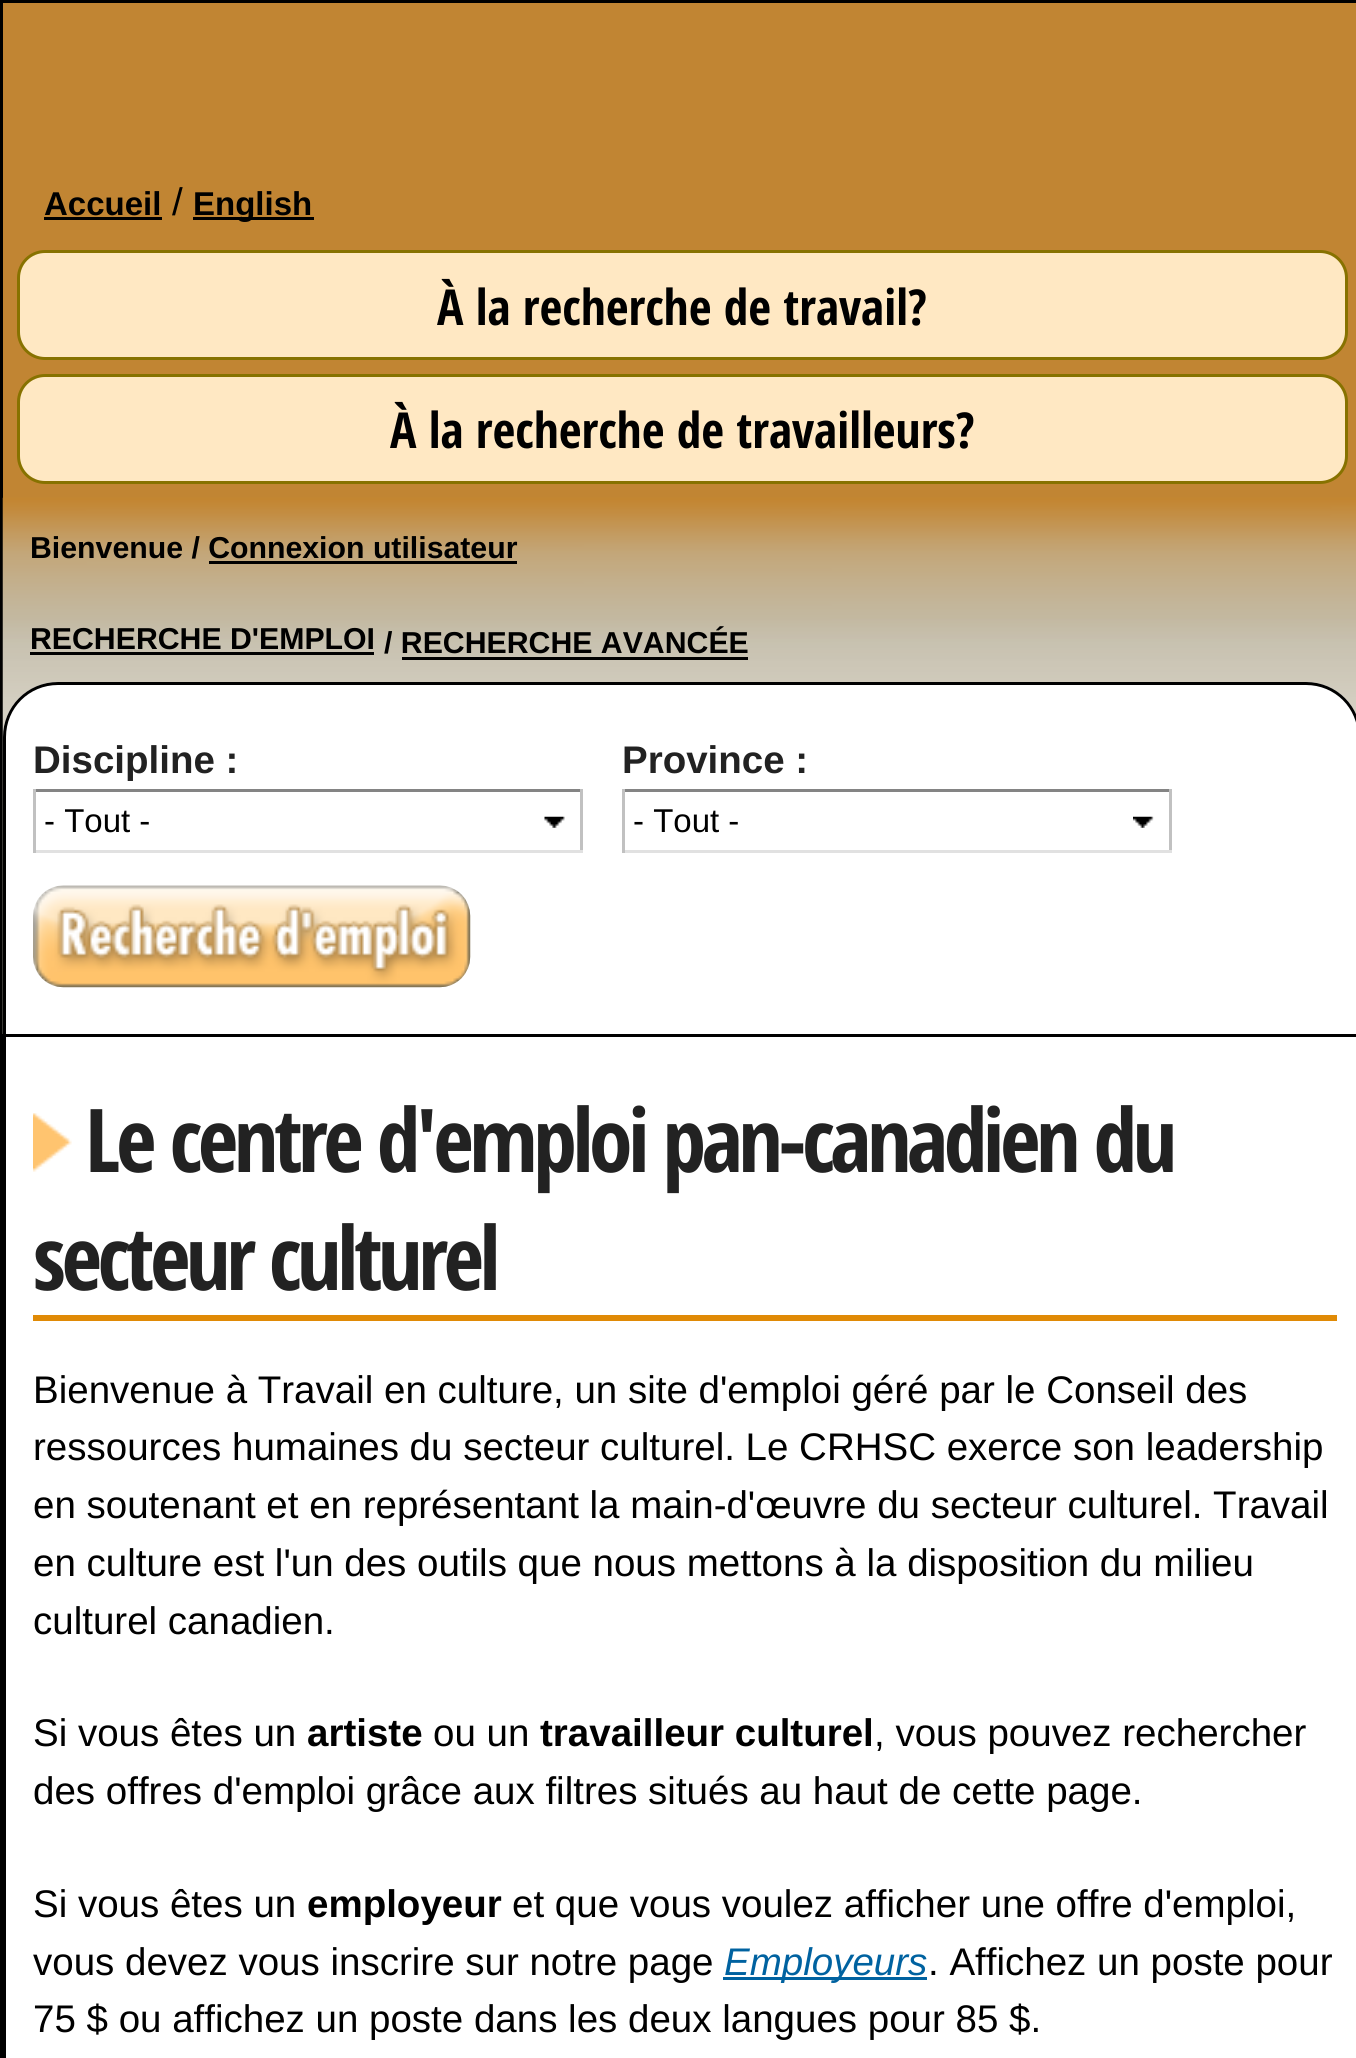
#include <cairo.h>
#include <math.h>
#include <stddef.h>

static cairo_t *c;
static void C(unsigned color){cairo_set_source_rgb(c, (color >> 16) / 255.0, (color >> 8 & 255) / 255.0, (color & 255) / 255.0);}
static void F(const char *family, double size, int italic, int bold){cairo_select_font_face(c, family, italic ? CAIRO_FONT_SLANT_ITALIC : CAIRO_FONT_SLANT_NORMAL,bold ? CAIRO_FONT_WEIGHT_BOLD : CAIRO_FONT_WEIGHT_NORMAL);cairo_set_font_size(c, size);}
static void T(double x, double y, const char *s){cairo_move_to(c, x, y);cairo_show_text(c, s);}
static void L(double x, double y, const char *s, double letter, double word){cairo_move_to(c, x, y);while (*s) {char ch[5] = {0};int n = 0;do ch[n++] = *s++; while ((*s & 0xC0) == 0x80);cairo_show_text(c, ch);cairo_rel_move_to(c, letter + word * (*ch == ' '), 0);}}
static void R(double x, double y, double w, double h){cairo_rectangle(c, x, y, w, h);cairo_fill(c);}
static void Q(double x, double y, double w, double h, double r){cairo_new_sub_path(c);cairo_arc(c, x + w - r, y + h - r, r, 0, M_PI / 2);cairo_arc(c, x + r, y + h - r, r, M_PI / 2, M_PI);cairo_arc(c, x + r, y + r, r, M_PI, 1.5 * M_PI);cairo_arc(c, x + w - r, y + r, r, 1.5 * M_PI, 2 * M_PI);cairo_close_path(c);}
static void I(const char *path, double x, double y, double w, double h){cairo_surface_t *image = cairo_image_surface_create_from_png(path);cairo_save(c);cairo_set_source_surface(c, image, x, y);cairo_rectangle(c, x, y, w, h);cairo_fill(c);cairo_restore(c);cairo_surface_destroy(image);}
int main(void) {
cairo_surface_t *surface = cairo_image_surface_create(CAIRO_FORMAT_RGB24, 1356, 2058);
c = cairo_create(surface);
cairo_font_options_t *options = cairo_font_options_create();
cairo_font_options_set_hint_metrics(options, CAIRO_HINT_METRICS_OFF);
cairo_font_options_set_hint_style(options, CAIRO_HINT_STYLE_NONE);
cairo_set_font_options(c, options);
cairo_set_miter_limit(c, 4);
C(0xffffff);
cairo_paint(c);
cairo_rectangle(c,1.5,1.5,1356,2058);
C(0x000000);
cairo_set_line_width(c,3);
cairo_stroke(c);
C(0xc18533);
R(3,3,1353,495);
F("Liberation Sans",33,0,1);
C(0x000000);
T(44,215,"Accueil");
R(44,217,118,3);
F("Liberation Sans",38.5,0,0);
T(172,215,"/");
R(193,217,121,3);
F("Liberation Sans",33,0,1);
T(193,215,"English");
C(0xffe8c3);
Q(18.5,251.5,1328,107,26.5);
cairo_fill_preserve(c);
C(0x877200);
cairo_stroke(c);
F("Open Sans Condensed",49.5,0,1);
C(0x000000);
T(437,325,"À la recherche de travail?");
C(0xffe8c3);
Q(18.5,375.5,1328,107,26.5);
cairo_fill_preserve(c);
C(0x877200);
cairo_stroke(c);
C(0x000000);
T(390,448,"À la recherche de travailleurs?");
R(3,1034,1353,3);
I("1.png",2,497,1354,537);
F("Liberation Sans",30.25,0,1);
T(30,558,"Bienvenue / Connexion utilisateur");
R(209,561,308,3);
T(30,649,"RECHERCHE D'EMPLOI");
R(30,652,344,3);
T(384,653,"/ RECHERCHE AVANCÉE");
R(402,657,346,3);
C(0xffffff);
cairo_new_path(c);
cairo_move_to(c,58,682);
cairo_line_to(c,1306,682);
cairo_curve_to(c,1336.5,682,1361,706.5,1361,737);
cairo_line_to(c,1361,1034);
cairo_line_to(c,3,1034);
cairo_line_to(c,3,737);
cairo_curve_to(c,3,706.5,27.5,682,58,682);
cairo_close_path(c);
cairo_fill(c);
C(0x000000);
cairo_set_fill_rule(c,CAIRO_FILL_RULE_EVEN_ODD);
cairo_new_path(c);
cairo_move_to(c,58,682);
cairo_line_to(c,1306,682);
cairo_curve_to(c,1337,682,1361,707,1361,737);
cairo_line_to(c,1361,1034);
cairo_line_to(c,3,1034);
cairo_line_to(c,3,737);
cairo_curve_to(c,3,707,27,682,58,682);
cairo_close_path(c);
cairo_move_to(c,58,685);
cairo_line_to(c,1306,685);
cairo_curve_to(c,1335,685,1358,708,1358,737);
cairo_line_to(c,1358,1034);
cairo_line_to(c,6,1034);
cairo_line_to(c,6,737);
cairo_curve_to(c,6,708,29,685,58,685);
cairo_close_path(c);
cairo_fill(c);
F("Liberation Sans",38.5,0,1);
C(0x222222);
T(33,773,"Discipline :");
I("2.png",544,816,21,12);
C(0x848484);
R(33,789,550,3);
C(0xc1c1c1);
R(580,789,3,64);
C(0xe1e1e1);
R(33,850,550,3);
C(0xc1c1c1);
R(33,789,3,64);
F("Liberation Sans",33,0,0);
C(0x000000);
T(44,832,"- Tout -");
F("Liberation Sans",38.5,0,1);
C(0x222222);
T(622,773,"Province :");
I("3.png",1133,816,21,12);
C(0x848484);
R(622,789,550,3);
C(0xc1c1c1);
R(1169,789,3,64);
C(0xe1e1e1);
R(622,850,550,3);
C(0xc1c1c1);
R(622,789,3,64);
F("Liberation Sans",33,0,0);
C(0x000000);
T(633,832,"- Tout -");
I("4.png",33,885,438,103);
R(3,1037,3,1021);
C(0xe08a06);
R(33,1315,1304,6);
I("5.png",33,1113,39,59);
F("Open Sans Condensed",88,0,1);
C(0x222222);
L(85,1172,"Le centre d'emploi pan-canadien du",-4.4,0);
L(33,1290,"secteur culturel",-4.4,0);
F("Liberation Sans",38.5,0,0);
C(0x000000);
T(33,1403,"Bienvenue à Travail en culture, un site d'emploi géré par le Conseil des");
T(33,1460,"ressources humaines du secteur culturel. Le CRHSC exerce son leadership");
T(33,1518,"en soutenant et en représentant la main-d'œuvre du secteur culturel. Travail");
T(33,1576,"en culture est l'un des outils que nous mettons à la disposition du milieu");
T(33,1634,"culturel canadien.");
T(33,1746,"Si vous êtes un");
F("Liberation Sans",38.5,0,1);
T(307,1746,"artiste");
F("Liberation Sans",38.5,0,0);
T(433,1746,"ou un");
F("Liberation Sans",38.5,0,1);
T(540,1746,"travailleur culturel");
F("Liberation Sans",38.5,0,0);
T(874,1746,", vous pouvez rechercher");
T(33,1804,"des offres d'emploi grâce aux filtres situés au haut de cette page.");
T(33,1917,"Si vous êtes un");
F("Liberation Sans",38.5,0,1);
T(307,1917,"employeur");
F("Liberation Sans",38.5,0,0);
T(512,1917,"et que vous voulez afficher une offre d'emploi,");
T(33,1975,"vous devez vous inscrire sur notre page");
C(0x0062a0);
R(723,1977,204,3);
F("Liberation Sans",38.5,1,0);
T(724,1975,"Employeurs");
F("Liberation Sans",38.5,0,0);
C(0x000000);
T(928,1975,". Affichez un poste pour");
T(33,2032,"75 $ ou affichez un poste dans les deux langues pour 85 $.");
cairo_surface_write_to_png(surface, "o.png");
cairo_font_options_destroy(options);
cairo_destroy(c);
cairo_surface_destroy(surface);
return 0;
}
